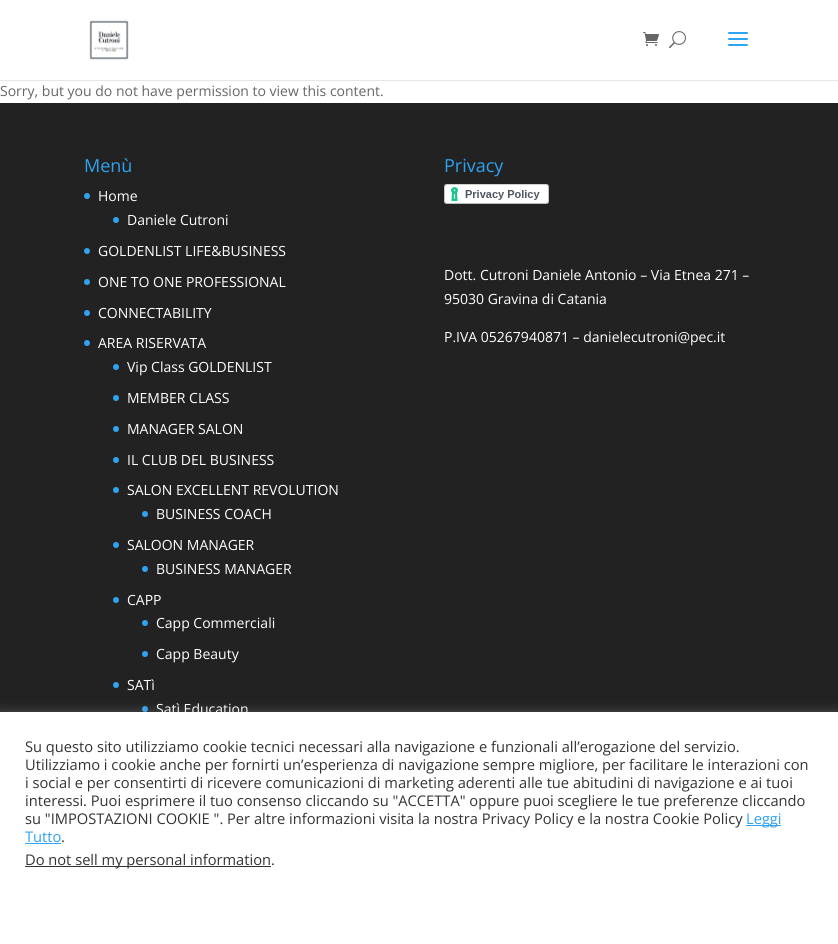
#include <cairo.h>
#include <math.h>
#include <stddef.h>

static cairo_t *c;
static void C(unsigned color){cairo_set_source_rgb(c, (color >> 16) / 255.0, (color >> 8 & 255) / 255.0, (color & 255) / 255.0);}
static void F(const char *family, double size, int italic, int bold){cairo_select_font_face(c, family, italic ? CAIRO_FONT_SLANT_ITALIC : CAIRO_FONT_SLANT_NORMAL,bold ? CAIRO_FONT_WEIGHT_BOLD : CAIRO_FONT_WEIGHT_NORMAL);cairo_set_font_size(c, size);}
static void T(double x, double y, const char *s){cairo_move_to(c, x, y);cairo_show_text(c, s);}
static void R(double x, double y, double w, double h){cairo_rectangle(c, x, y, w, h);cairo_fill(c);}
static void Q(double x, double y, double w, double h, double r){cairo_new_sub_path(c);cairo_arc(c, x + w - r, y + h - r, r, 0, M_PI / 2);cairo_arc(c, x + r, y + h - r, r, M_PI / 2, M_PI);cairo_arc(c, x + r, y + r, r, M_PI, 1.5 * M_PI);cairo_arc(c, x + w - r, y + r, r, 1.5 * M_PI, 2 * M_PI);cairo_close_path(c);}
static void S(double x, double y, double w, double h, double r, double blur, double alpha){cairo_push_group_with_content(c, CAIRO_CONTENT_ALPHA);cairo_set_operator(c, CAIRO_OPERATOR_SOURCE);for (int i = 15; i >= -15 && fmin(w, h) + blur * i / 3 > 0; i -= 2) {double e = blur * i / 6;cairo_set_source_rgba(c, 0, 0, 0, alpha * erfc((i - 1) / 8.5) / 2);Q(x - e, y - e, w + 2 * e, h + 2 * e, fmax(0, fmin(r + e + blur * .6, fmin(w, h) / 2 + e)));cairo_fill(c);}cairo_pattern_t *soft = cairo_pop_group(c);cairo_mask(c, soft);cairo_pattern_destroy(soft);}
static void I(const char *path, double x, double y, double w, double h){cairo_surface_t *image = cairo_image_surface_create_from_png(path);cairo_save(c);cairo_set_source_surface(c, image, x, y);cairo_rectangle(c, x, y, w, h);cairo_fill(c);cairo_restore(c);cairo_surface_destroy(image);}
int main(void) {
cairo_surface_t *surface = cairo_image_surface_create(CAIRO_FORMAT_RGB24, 838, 944);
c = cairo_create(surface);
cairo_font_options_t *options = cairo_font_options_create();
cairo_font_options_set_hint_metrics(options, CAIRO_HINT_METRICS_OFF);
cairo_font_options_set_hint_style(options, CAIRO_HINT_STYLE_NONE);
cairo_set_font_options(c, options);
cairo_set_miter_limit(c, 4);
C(0xffffff);
cairo_paint(c);
C(0xe6e6e6);
R(0,80,838,1);
I("1.png",89,20,40,40);
I("2.png",643,32,16,14);
I("3.png",669,31,17,18);
I("4.png",728,32,20,14);
F("Open Sans",14,0,0);
C(0x666666);
T(0,96,"Sorry, but you do not have permission to view this content.");
C(0x222222);
R(0,103,838,609);
F("Open Sans",18,0,0);
C(0x2ea3f2);
T(84,172,"Menù");
cairo_new_path(c);
cairo_arc(c,87,196,3,0,2 * M_PI);
cairo_fill(c);
F("Open Sans",14,0,0);
C(0xffffff);
T(98,201,"Home");
C(0x2ea3f2);
cairo_new_path(c);
cairo_arc(c,116,220,3,0,2 * M_PI);
cairo_fill(c);
C(0xffffff);
T(127,225,"Daniele Cutroni");
C(0x2ea3f2);
cairo_new_path(c);
cairo_arc(c,87,251,3,0,2 * M_PI);
cairo_fill(c);
C(0xffffff);
T(98,256,"GOLDENLIST LIFE&BUSINESS");
C(0x2ea3f2);
cairo_new_path(c);
cairo_arc(c,87,282,3,0,2 * M_PI);
cairo_fill(c);
C(0xffffff);
T(98,287,"ONE TO ONE PROFESSIONAL");
C(0x2ea3f2);
cairo_new_path(c);
cairo_arc(c,87,313,3,0,2 * M_PI);
cairo_fill(c);
C(0xffffff);
T(98,318,"CONNECTABILITY");
C(0x2ea3f2);
cairo_new_path(c);
cairo_arc(c,87,343,3,0,2 * M_PI);
cairo_fill(c);
C(0xffffff);
T(98,348,"AREA RISERVATA");
C(0x2ea3f2);
cairo_new_path(c);
cairo_arc(c,116,367,3,0,2 * M_PI);
cairo_fill(c);
C(0xffffff);
T(127,372,"Vip Class GOLDENLIST");
C(0x2ea3f2);
cairo_new_path(c);
cairo_arc(c,116,398,3,0,2 * M_PI);
cairo_fill(c);
C(0xffffff);
T(127,403,"MEMBER CLASS");
C(0x2ea3f2);
cairo_new_path(c);
cairo_arc(c,116,429,3,0,2 * M_PI);
cairo_fill(c);
C(0xffffff);
T(127,434,"MANAGER SALON");
C(0x2ea3f2);
cairo_new_path(c);
cairo_arc(c,116,460,3,0,2 * M_PI);
cairo_fill(c);
C(0xffffff);
T(127,465,"IL CLUB DEL BUSINESS");
C(0x2ea3f2);
cairo_new_path(c);
cairo_arc(c,116,490,3,0,2 * M_PI);
cairo_fill(c);
C(0xffffff);
T(127,495,"SALON EXCELLENT REVOLUTION");
C(0x2ea3f2);
cairo_new_path(c);
cairo_arc(c,145,514,3,0,2 * M_PI);
cairo_fill(c);
C(0xffffff);
T(156,519,"BUSINESS COACH");
C(0x2ea3f2);
cairo_new_path(c);
cairo_arc(c,116,545,3,0,2 * M_PI);
cairo_fill(c);
C(0xffffff);
T(127,550,"SALOON MANAGER");
C(0x2ea3f2);
cairo_new_path(c);
cairo_arc(c,145,569,3,0,2 * M_PI);
cairo_fill(c);
C(0xffffff);
T(156,574,"BUSINESS MANAGER");
C(0x2ea3f2);
cairo_new_path(c);
cairo_arc(c,116,600,3,0,2 * M_PI);
cairo_fill(c);
C(0xffffff);
T(127,605,"CAPP");
C(0x2ea3f2);
cairo_new_path(c);
cairo_arc(c,145,623,3,0,2 * M_PI);
cairo_fill(c);
C(0xffffff);
T(156,628,"Capp Commerciali");
C(0x2ea3f2);
cairo_new_path(c);
cairo_arc(c,145,654,3,0,2 * M_PI);
cairo_fill(c);
C(0xffffff);
T(156,659,"Capp Beauty");
C(0x2ea3f2);
cairo_new_path(c);
cairo_arc(c,116,685,3,0,2 * M_PI);
cairo_fill(c);
C(0xffffff);
T(127,690,"SATì");
C(0x2ea3f2);
cairo_new_path(c);
cairo_arc(c,145,709,3,0,2 * M_PI);
cairo_fill(c);
C(0xffffff);
T(156,714,"Satì Education");
F("Open Sans",18,0,0);
C(0x2ea3f2);
T(444,172,"Privacy");
I("5.png",444,184,105,20);
F("Open Sans",14,0,0);
C(0xffffff);
T(444,280,"Dott. Cutroni Daniele Antonio – Via Etnea 271 –");
T(444,304,"95030 Gravina di Catania");
T(444,342,"P.IVA 05267940871 – danielecutroni@pec.it");
C(0xacabab);
S(0,711,838,232,0,5,.3);
C(0xffffff);
R(0,712,838,232);
F("Open Sans",14.67,0,0);
C(0x333333);
T(25,752,"Su questo sito utilizziamo cookie tecnici necessari alla navigazione e funzionali all’erogazione del servizio.");
T(25,770,"Utilizziamo i cookie anche per fornirti un’esperienza di navigazione sempre migliore, per facilitare le interazioni con");
T(25,788,"i social e per consentirti di ricevere comunicazioni di marketing aderenti alle tue abitudini di navigazione e ai tuoi");
T(25,806,"interessi. Puoi esprimere il tuo consenso cliccando su \"ACCETTA\" oppure puoi scegliere le tue preferenze cliccando");
T(25,824,"su \"IMPOSTAZIONI COOKIE \". Per altre informazioni visita la nostra Privacy Policy e la nostra Cookie Policy");
C(0x2ea3f2);
R(746,825,35,1);
T(746,824,"Leggi");
T(25,842,"Tutto");
R(25,843,36,1);
C(0x333333);
T(61,842,".");
R(25,866,246,1);
T(25,865,"Do not sell my personal information.");
cairo_surface_write_to_png(surface, "o.png");
cairo_font_options_destroy(options);
cairo_destroy(c);
cairo_surface_destroy(surface);
return 0;
}
